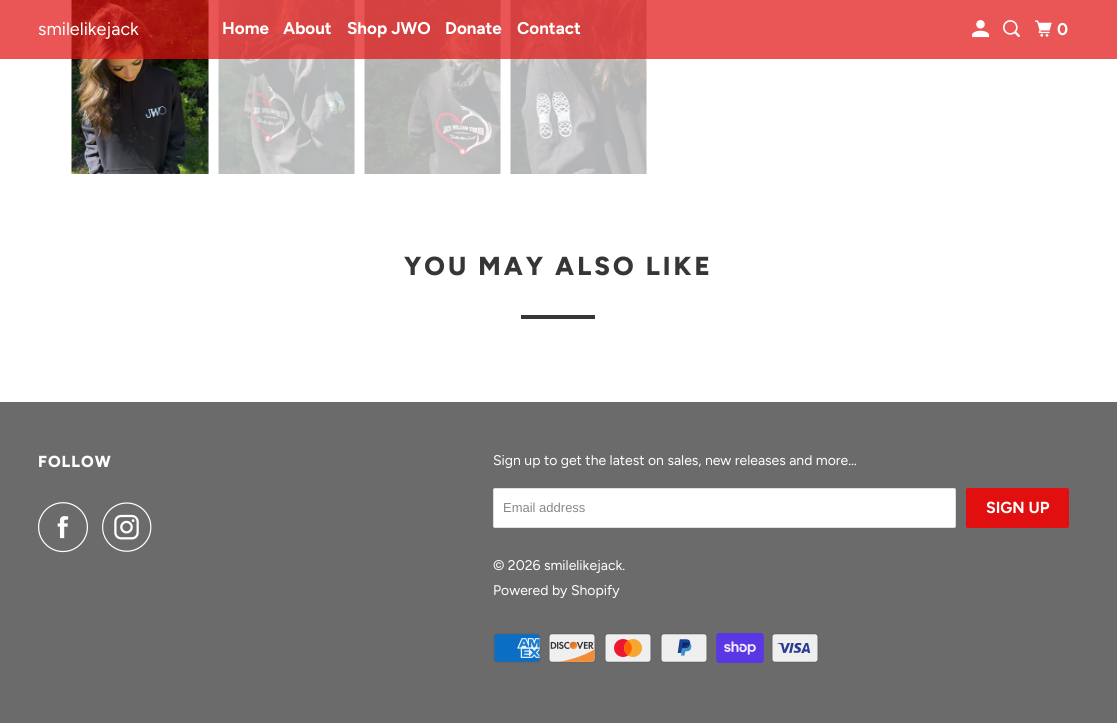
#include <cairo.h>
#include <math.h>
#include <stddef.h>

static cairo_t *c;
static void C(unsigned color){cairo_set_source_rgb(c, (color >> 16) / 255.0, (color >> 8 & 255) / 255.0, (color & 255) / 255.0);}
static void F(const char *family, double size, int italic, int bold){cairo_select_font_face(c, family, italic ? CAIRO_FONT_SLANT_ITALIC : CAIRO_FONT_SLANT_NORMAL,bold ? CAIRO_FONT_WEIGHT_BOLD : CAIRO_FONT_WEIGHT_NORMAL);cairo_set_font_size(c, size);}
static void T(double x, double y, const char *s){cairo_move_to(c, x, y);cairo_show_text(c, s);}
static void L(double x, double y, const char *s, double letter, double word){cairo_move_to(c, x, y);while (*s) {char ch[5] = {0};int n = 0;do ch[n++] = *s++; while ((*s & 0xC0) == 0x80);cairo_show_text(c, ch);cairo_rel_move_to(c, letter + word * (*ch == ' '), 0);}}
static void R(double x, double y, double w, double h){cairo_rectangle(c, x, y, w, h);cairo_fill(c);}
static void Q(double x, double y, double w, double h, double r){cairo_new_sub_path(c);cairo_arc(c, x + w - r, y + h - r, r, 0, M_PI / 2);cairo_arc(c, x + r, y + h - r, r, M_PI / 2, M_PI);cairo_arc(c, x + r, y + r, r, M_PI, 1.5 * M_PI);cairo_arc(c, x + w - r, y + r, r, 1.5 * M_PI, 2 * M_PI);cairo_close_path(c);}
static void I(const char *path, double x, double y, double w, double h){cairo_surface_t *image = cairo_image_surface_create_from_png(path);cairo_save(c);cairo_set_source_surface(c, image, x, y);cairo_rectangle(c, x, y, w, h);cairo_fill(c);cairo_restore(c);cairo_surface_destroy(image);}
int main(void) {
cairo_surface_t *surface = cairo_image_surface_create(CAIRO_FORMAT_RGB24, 1117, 723);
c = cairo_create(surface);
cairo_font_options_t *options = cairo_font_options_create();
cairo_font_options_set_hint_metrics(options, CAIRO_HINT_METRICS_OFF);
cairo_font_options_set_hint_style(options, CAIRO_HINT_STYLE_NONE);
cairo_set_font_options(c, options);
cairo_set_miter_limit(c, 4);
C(0xffffff);
cairo_paint(c);
I("4.png",71,0,138,174);
I("5.png",218,0,137,174);
I("6.png",364,0,137,174);
I("7.png",510,0,137,174);
cairo_set_source_rgba(c,0.882,0.059,0.059,0.7);
R(0,0,1117,59);
F("Figtree",18,0,0);
C(0xffffff);
T(38,35,"smilelikejack");
F("Figtree",17,0,1);
T(222,34,"Home");
T(283,34,"About");
T(347,34,"Shop JWO");
T(445,34,"Donate");
T(517,34,"Contact");
I("1.png",972,20,17,18);
I("2.png",1003,20,17,17);
I("3.png",1035,20,17,17);
T(1057,35,"0");
F("Figtree ExtraBold",26,0,0);
C(0x363636);
L(404,275,"YOU MAY ALSO LIKE",3,0);
R(521,315,74,4);
C(0x6b6b6b);
R(0,402,1117,321);
F("Figtree ExtraBold",16,0,0);
C(0xffffff);
L(38,467,"FOLLOW",1,0);
I("8.png",38,502,50,51);
I("9.png",102,502,50,50);
F("Figtree",14,0,0);
T(493,465,"Sign up to get the latest on sales, new releases and more…");
Q(493.5,488.5,462,39,1.5);
cairo_fill_preserve(c);
C(0xdfdfdf);
cairo_set_line_width(c,1);
cairo_stroke(c);
F("Liberation Sans",13,0,0);
C(0x888888);
T(503,512,"Email address");
C(0xe10f0f);
Q(966,488,103,40,2);
cairo_fill(c);
F("Figtree",16,0,1);
C(0xffffff);
T(986,513,"SIGN UP");
F("Figtree",14,0,0);
T(493,570,"© 2026 smilelikejack.");
T(493,595,"Powered by Shopify");
I("10.png",493,633,48,30);
I("11.png",548,633,48,30);
I("12.png",604,633,48,30);
I("13.png",660,633,48,30);
I("14.png",716,633,48,30);
I("15.png",771,633,48,30);
cairo_surface_write_to_png(surface, "o.png");
cairo_font_options_destroy(options);
cairo_destroy(c);
cairo_surface_destroy(surface);
return 0;
}
